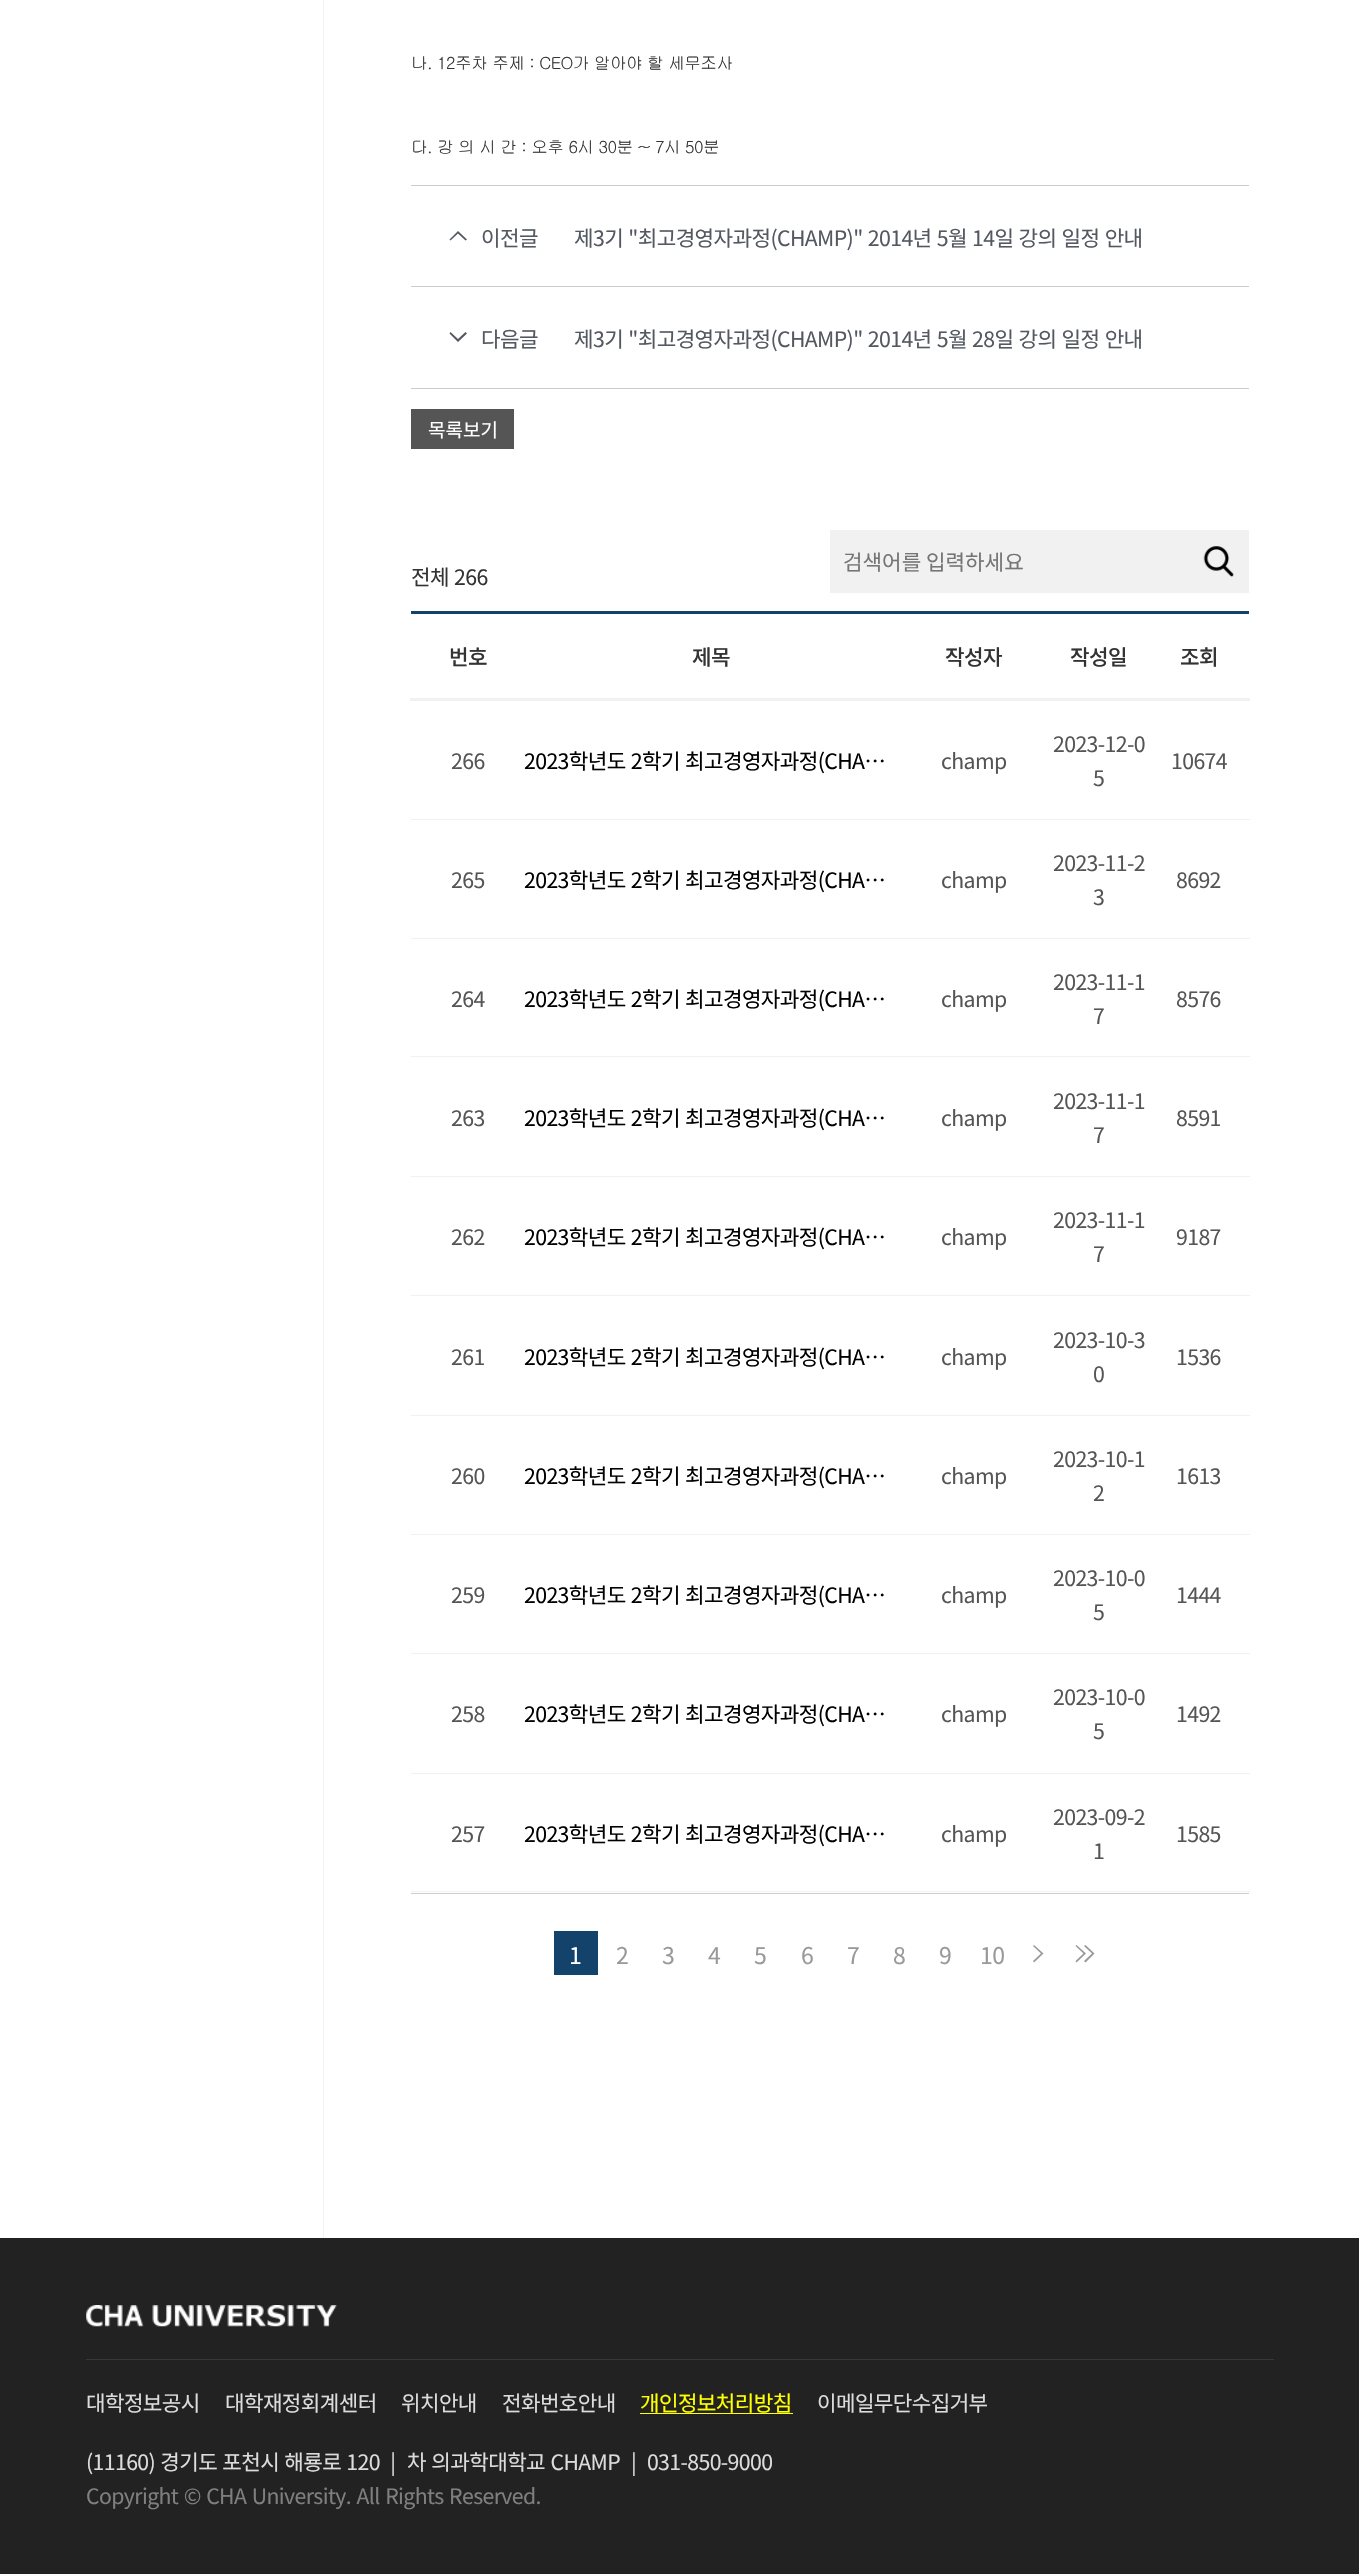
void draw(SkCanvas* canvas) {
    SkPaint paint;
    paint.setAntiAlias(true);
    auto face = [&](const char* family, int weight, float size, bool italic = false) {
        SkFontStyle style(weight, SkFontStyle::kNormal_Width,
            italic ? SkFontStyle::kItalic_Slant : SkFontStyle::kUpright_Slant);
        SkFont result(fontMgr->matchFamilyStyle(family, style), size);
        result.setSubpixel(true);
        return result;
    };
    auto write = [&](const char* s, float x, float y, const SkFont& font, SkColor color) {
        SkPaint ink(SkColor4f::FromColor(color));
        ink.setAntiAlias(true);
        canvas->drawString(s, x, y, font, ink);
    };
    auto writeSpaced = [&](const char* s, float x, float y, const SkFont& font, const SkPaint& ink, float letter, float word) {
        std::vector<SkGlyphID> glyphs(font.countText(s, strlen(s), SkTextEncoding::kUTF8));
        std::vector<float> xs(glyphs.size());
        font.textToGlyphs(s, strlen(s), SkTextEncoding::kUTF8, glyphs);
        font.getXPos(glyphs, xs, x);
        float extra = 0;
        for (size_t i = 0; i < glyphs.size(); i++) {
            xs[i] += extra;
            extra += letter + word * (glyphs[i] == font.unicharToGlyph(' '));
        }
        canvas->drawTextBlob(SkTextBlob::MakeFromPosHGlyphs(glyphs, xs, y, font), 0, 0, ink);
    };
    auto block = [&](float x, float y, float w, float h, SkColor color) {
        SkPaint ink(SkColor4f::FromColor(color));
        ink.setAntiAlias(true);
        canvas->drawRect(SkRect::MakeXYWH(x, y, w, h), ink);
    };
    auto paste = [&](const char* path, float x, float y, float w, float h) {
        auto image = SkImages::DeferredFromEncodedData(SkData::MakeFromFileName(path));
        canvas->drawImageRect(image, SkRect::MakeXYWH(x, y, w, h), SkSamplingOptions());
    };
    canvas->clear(SkColorSetRGB(34, 34, 34));
    block(0, 0, 1359, 2238, SK_ColorWHITE);
    block(323, 0, 1, 2238, SkColorSetRGB(242, 242, 242));
    auto kFont1 = face("Gulim", 400, 16.7f);
    paint.setColor(SkColorSetRGB(51, 51, 51));
    writeSpaced("나. 12주차 주제 : CEO가 알아야 할 세무조사", 411, 69, kFont1, paint, -0.6f, 0);
    writeSpaced("다. 강 의 시 간 : 오후 6시 30분 ~ 7시 50분", 411, 153, kFont1, paint, -0.6f, 0);
    block(411, 185, 838, 1, SkColorSetRGB(204, 204, 204));
    block(411, 388, 838, 1, SkColorSetRGB(204, 204, 204));
    paint.setColor(SkColorSetRGB(84, 88, 97));
    canvas->drawPath(SkPathBuilder().moveTo(465.5f, 240.5f).lineTo(458, 233.5f).lineTo(450.5f, 240.5f).lineTo(449.5f, 239.5f).lineTo(458, 231).lineTo(467, 239.5f).close().detach(), paint);
    auto kFont2 = face("Noto Sans KR", 400, 21.25f);
    writeSpaced("이전글", 481, 246, kFont2, paint, -0.6f, 0);
    writeSpaced("제3기 \"최고경영자과정(CHAMP)\" 2014년 5월 14일 강의 일정 안내", 574, 246, kFont2, paint, -0.6f, 1);
    block(411, 286, 838, 1, SkColorSetRGB(204, 204, 204));
    canvas->drawPath(SkPathBuilder().moveTo(450.5f, 332).lineTo(458, 339).lineTo(465.5f, 332).lineTo(467, 333.5f).lineTo(458, 342).lineTo(449.5f, 333.5f).close().detach(), paint);
    writeSpaced("다음글", 481, 347, kFont2, paint, -0.6f, 0);
    writeSpaced("제3기 \"최고경영자과정(CHAMP)\" 2014년 5월 28일 강의 일정 안내", 574, 347, kFont2, paint, -0.6f, 1);
    block(411, 409, 103, 40, SkColorSetRGB(85, 85, 85));
    auto kFont3 = face("Noto Sans KR", 400, 19);
    write("목록보기", 428, 437, kFont3, SK_ColorWHITE);
    block(830, 530, 419, 63, SkColorSetRGB(241, 241, 241));
    write("검색어를 입력하세요", 843, 570, kFont2, SkColorSetRGB(117, 117, 117));
    paste("pic1.png", 1203, 546, 31, 31);
    paint.setColor(SkColorSetRGB(51, 51, 51));
    writeSpaced("전체 266", 411, 585, kFont2, paint, -0.6f, 1);
    block(411, 1893, 838, 1, SkColorSetRGB(204, 204, 204));
    block(411, 611, 838, 3, SkColorSetRGB(19, 67, 107));
    auto kFont4 = face("Noto Sans KR", 500, 21.25f);
    writeSpaced("번호", 449, 665, kFont4, paint, -0.6f, 0);
    writeSpaced("제목", 692, 665, kFont4, paint, -0.6f, 0);
    writeSpaced("작성자", 945, 665, kFont4, paint, -0.6f, 0);
    writeSpaced("작성일", 1070, 665, kFont4, paint, -0.6f, 0);
    block(410, 698, 840, 3, SkColorSetRGB(241, 241, 241));
    writeSpaced("조회", 1180, 665, kFont4, paint, -0.6f, 0);
    paint.setColor(SkColorSetRGB(85, 85, 85));
    writeSpaced("266", 451, 769, kFont2, paint, -0.6f, 0);
    paint.setColor(SK_ColorBLACK);
    writeSpaced("2023학년도 2학기 최고경영자과정(CHA…", 524, 769, kFont2, paint, -0.6f, 1);
    paint.setColor(SkColorSetRGB(85, 85, 85));
    writeSpaced("champ", 941, 769, kFont2, paint, -0.6f, 0);
    writeSpaced("2023-12-0", 1053, 752, kFont2, paint, -0.6f, 0);
    writeSpaced("5", 1093, 786, kFont2, paint, -0.6f, 0);
    block(411, 819, 839, 1, SkColorSetRGB(241, 241, 241));
    writeSpaced("10674", 1171, 769, kFont2, paint, -0.6f, 0);
    writeSpaced("265", 451, 888, kFont2, paint, -0.6f, 0);
    paint.setColor(SK_ColorBLACK);
    writeSpaced("2023학년도 2학기 최고경영자과정(CHA…", 524, 888, kFont2, paint, -0.6f, 1);
    paint.setColor(SkColorSetRGB(85, 85, 85));
    writeSpaced("champ", 941, 888, kFont2, paint, -0.6f, 0);
    writeSpaced("2023-11-2", 1053, 871, kFont2, paint, -0.6f, 0);
    writeSpaced("3", 1093, 905, kFont2, paint, -0.6f, 0);
    block(411, 938, 839, 1, SkColorSetRGB(241, 241, 241));
    writeSpaced("8692", 1176, 888, kFont2, paint, -0.6f, 0);
    writeSpaced("264", 451, 1007, kFont2, paint, -0.6f, 0);
    paint.setColor(SK_ColorBLACK);
    writeSpaced("2023학년도 2학기 최고경영자과정(CHA…", 524, 1007, kFont2, paint, -0.6f, 1);
    paint.setColor(SkColorSetRGB(85, 85, 85));
    writeSpaced("champ", 941, 1007, kFont2, paint, -0.6f, 0);
    writeSpaced("2023-11-1", 1053, 990, kFont2, paint, -0.6f, 0);
    writeSpaced("7", 1093, 1024, kFont2, paint, -0.6f, 0);
    block(411, 1056, 839, 1, SkColorSetRGB(241, 241, 241));
    writeSpaced("8576", 1176, 1007, kFont2, paint, -0.6f, 0);
    writeSpaced("263", 451, 1126, kFont2, paint, -0.6f, 0);
    paint.setColor(SK_ColorBLACK);
    writeSpaced("2023학년도 2학기 최고경영자과정(CHA…", 524, 1126, kFont2, paint, -0.6f, 1);
    paint.setColor(SkColorSetRGB(85, 85, 85));
    writeSpaced("champ", 941, 1126, kFont2, paint, -0.6f, 0);
    writeSpaced("2023-11-1", 1053, 1109, kFont2, paint, -0.6f, 0);
    writeSpaced("7", 1093, 1143, kFont2, paint, -0.6f, 0);
    block(411, 1176, 839, 1, SkColorSetRGB(241, 241, 241));
    writeSpaced("8591", 1176, 1126, kFont2, paint, -0.6f, 0);
    writeSpaced("262", 451, 1245, kFont2, paint, -0.6f, 0);
    paint.setColor(SK_ColorBLACK);
    writeSpaced("2023학년도 2학기 최고경영자과정(CHA…", 524, 1245, kFont2, paint, -0.6f, 1);
    paint.setColor(SkColorSetRGB(85, 85, 85));
    writeSpaced("champ", 941, 1245, kFont2, paint, -0.6f, 0);
    writeSpaced("2023-11-1", 1053, 1228, kFont2, paint, -0.6f, 0);
    writeSpaced("7", 1093, 1262, kFont2, paint, -0.6f, 0);
    block(411, 1295, 839, 1, SkColorSetRGB(241, 241, 241));
    writeSpaced("9187", 1176, 1245, kFont2, paint, -0.6f, 0);
    writeSpaced("261", 451, 1365, kFont2, paint, -0.6f, 0);
    paint.setColor(SK_ColorBLACK);
    writeSpaced("2023학년도 2학기 최고경영자과정(CHA…", 524, 1365, kFont2, paint, -0.6f, 1);
    paint.setColor(SkColorSetRGB(85, 85, 85));
    writeSpaced("champ", 941, 1365, kFont2, paint, -0.6f, 0);
    writeSpaced("2023-10-3", 1053, 1348, kFont2, paint, -0.6f, 0);
    writeSpaced("0", 1093, 1382, kFont2, paint, -0.6f, 0);
    block(411, 1415, 839, 1, SkColorSetRGB(241, 241, 241));
    writeSpaced("1536", 1176, 1365, kFont2, paint, -0.6f, 0);
    writeSpaced("260", 451, 1484, kFont2, paint, -0.6f, 0);
    paint.setColor(SK_ColorBLACK);
    writeSpaced("2023학년도 2학기 최고경영자과정(CHA…", 524, 1484, kFont2, paint, -0.6f, 1);
    paint.setColor(SkColorSetRGB(85, 85, 85));
    writeSpaced("champ", 941, 1484, kFont2, paint, -0.6f, 0);
    writeSpaced("2023-10-1", 1053, 1467, kFont2, paint, -0.6f, 0);
    writeSpaced("2", 1093, 1501, kFont2, paint, -0.6f, 0);
    block(411, 1534, 839, 1, SkColorSetRGB(241, 241, 241));
    writeSpaced("1613", 1176, 1484, kFont2, paint, -0.6f, 0);
    writeSpaced("259", 451, 1603, kFont2, paint, -0.6f, 0);
    paint.setColor(SK_ColorBLACK);
    writeSpaced("2023학년도 2학기 최고경영자과정(CHA…", 524, 1603, kFont2, paint, -0.6f, 1);
    paint.setColor(SkColorSetRGB(85, 85, 85));
    writeSpaced("champ", 941, 1603, kFont2, paint, -0.6f, 0);
    writeSpaced("2023-10-0", 1053, 1586, kFont2, paint, -0.6f, 0);
    writeSpaced("5", 1093, 1620, kFont2, paint, -0.6f, 0);
    block(411, 1653, 839, 1, SkColorSetRGB(241, 241, 241));
    writeSpaced("1444", 1176, 1603, kFont2, paint, -0.6f, 0);
    writeSpaced("258", 451, 1722, kFont2, paint, -0.6f, 0);
    paint.setColor(SK_ColorBLACK);
    writeSpaced("2023학년도 2학기 최고경영자과정(CHA…", 524, 1722, kFont2, paint, -0.6f, 1);
    paint.setColor(SkColorSetRGB(85, 85, 85));
    writeSpaced("champ", 941, 1722, kFont2, paint, -0.6f, 0);
    writeSpaced("2023-10-0", 1053, 1705, kFont2, paint, -0.6f, 0);
    writeSpaced("5", 1093, 1739, kFont2, paint, -0.6f, 0);
    block(411, 1773, 839, 1, SkColorSetRGB(241, 241, 241));
    writeSpaced("1492", 1176, 1722, kFont2, paint, -0.6f, 0);
    writeSpaced("257", 451, 1842, kFont2, paint, -0.6f, 0);
    paint.setColor(SK_ColorBLACK);
    writeSpaced("2023학년도 2학기 최고경영자과정(CHA…", 524, 1842, kFont2, paint, -0.6f, 1);
    paint.setColor(SkColorSetRGB(85, 85, 85));
    writeSpaced("champ", 941, 1842, kFont2, paint, -0.6f, 0);
    writeSpaced("2023-09-2", 1053, 1825, kFont2, paint, -0.6f, 0);
    writeSpaced("1", 1093, 1859, kFont2, paint, -0.6f, 0);
    block(411, 1891, 839, 1, SkColorSetRGB(241, 241, 241));
    writeSpaced("1585", 1176, 1842, kFont2, paint, -0.6f, 0);
    block(554, 1931, 44, 44, SkColorSetRGB(19, 67, 107));
    auto kFont5 = face("Noto Sans KR", 400, 23);
    paint.setColor(SK_ColorWHITE);
    writeSpaced("1", 569, 1964, kFont5, paint, -0.6f, 0);
    paint.setColor(SkColorSetRGB(153, 153, 153));
    writeSpaced("2", 616, 1964, kFont5, paint, -0.6f, 0);
    writeSpaced("3", 662, 1964, kFont5, paint, -0.6f, 0);
    writeSpaced("4", 708, 1964, kFont5, paint, -0.6f, 0);
    writeSpaced("5", 754, 1964, kFont5, paint, -0.6f, 0);
    writeSpaced("6", 801, 1964, kFont5, paint, -0.6f, 0);
    writeSpaced("7", 847, 1964, kFont5, paint, -0.6f, 0);
    writeSpaced("8", 893, 1964, kFont5, paint, -0.6f, 0);
    writeSpaced("9", 939, 1964, kFont5, paint, -0.6f, 0);
    writeSpaced("10", 980, 1964, kFont5, paint, -0.6f, 0);
    canvas->drawPath(SkPathBuilder().moveTo(1033, 1961).lineTo(1041, 1953.5f).lineTo(1033, 1946).lineTo(1034, 1945).lineTo(1043.5f, 1953.5f).lineTo(1034, 1962.5f).close().moveTo(1075.5f, 1961).lineTo(1083.5f, 1953.5f).lineTo(1075.5f, 1946).lineTo(1076.5f, 1945).lineTo(1086, 1953.5f).lineTo(1076.5f, 1962.5f).close().detach(), paint);
    canvas->drawPath(SkPathBuilder().moveTo(1084, 1961).lineTo(1092, 1953.5f).lineTo(1084, 1946).lineTo(1085.5f, 1945).lineTo(1094.5f, 1953.5f).lineTo(1085.5f, 1962.5f).close().detach(), paint);
    block(86, 2359, 1188, 1, SkColorSetRGB(56, 56, 56));
    paste("pic2.png", 86, 2305, 251, 22);
    paint.setColor(SkColorSetRGB(220, 220, 220));
    writeSpaced("대학정보공시", 86, 2411, kFont2, paint, -0.6f, 0);
    writeSpaced("대학재정회계센터", 225, 2411, kFont2, paint, -0.6f, 0);
    writeSpaced("위치안내", 401, 2411, kFont2, paint, -0.6f, 0);
    writeSpaced("전화번호안내", 502, 2411, kFont2, paint, -0.6f, 0);
    paint.setColor(SkColorSetRGB(255, 255, 0));
    writeSpaced("개인정보처리방침", 640, 2411, kFont2, paint, -0.6f, 0);
    block(640, 2413, 153, 1, SkColorSetRGB(255, 255, 0));
    paint.setColor(SkColorSetRGB(220, 220, 220));
    writeSpaced("이메일무단수집거부", 817, 2411, kFont2, paint, -0.6f, 0);
    writeSpaced("(11160) 경기도 포천시 해룡로 120  |", 86, 2470, kFont2, paint, -0.6f, 1);
    writeSpaced("차 의과학대학교 CHAMP  |  031-850-9000", 407, 2470, kFont2, paint, -0.6f, 1.25f);
    paint.setColor(SkColorSetRGB(127, 127, 127));
    writeSpaced("Copyright © CHA University. All Rights Reserved.", 86, 2504, kFont2, paint, -0.6f, 1.25f);
}
